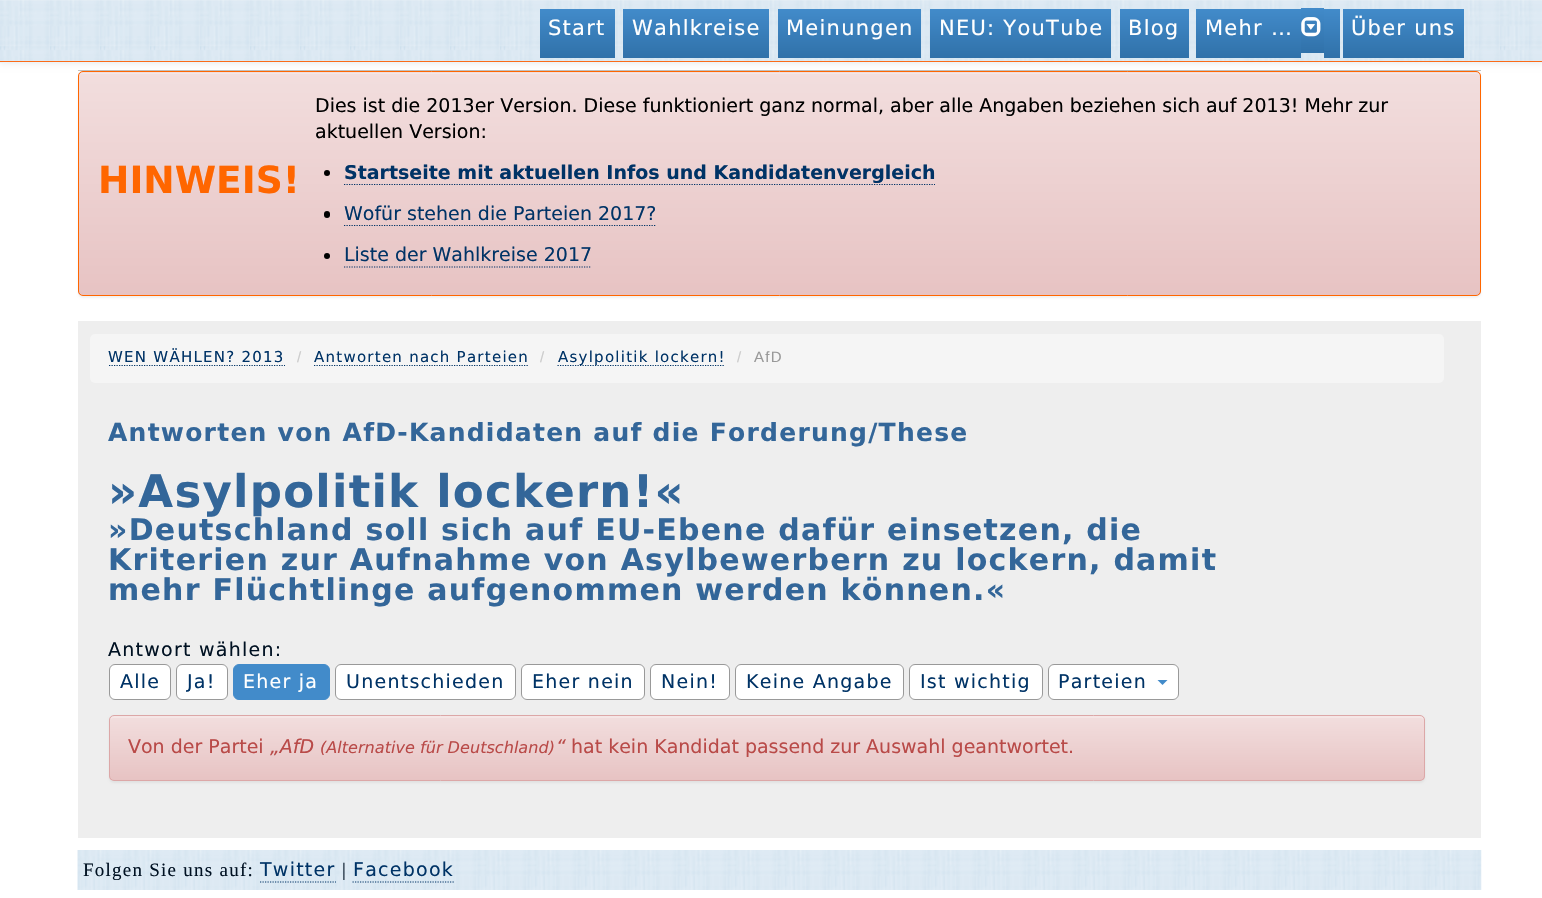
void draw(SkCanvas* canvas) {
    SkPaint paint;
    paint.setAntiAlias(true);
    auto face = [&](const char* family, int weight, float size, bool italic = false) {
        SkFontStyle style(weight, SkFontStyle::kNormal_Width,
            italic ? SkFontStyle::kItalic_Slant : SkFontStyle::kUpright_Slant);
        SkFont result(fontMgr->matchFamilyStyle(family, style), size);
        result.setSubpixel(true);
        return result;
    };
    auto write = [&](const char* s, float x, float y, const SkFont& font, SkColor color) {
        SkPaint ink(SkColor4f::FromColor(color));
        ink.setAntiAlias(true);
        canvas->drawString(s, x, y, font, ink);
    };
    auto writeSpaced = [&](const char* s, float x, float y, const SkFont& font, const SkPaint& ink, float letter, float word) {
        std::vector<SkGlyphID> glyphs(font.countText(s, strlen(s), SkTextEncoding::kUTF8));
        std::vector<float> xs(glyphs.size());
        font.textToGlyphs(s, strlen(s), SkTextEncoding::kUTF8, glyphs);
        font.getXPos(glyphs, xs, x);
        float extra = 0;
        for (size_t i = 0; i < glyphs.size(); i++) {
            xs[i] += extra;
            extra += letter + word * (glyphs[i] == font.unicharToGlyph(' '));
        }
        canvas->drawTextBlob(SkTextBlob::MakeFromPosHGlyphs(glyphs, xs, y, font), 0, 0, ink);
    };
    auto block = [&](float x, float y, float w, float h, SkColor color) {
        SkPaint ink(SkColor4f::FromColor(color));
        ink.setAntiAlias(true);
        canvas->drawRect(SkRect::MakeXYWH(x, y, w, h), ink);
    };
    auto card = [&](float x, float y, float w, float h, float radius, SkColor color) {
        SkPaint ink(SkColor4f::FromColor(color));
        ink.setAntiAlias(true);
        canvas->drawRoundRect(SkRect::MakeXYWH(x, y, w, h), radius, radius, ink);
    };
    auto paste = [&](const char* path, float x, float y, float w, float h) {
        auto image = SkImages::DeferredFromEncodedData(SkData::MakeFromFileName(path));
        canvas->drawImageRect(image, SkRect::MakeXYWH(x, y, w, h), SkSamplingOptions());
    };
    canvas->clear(SK_ColorWHITE);
    block(78, 70, 1403, 1, SkColorSetRGB(192, 192, 192));
    paint.setColor(SkColorSetARGB(13, 0, 0, 0));
    paint.setMaskFilter(SkMaskFilter::MakeBlur(kNormal_SkBlurStyle, 1));
    canvas->drawRoundRect(SkRect::MakeXYWH(78, 73, 1403, 225), 5, 5, paint);
    paint.setMaskFilter(nullptr);
    card(78, 71, 1403, 225, 5, SkColorSetRGB(242, 222, 222));
    canvas->save();
    canvas->clipPath(SkPathBuilder().moveTo(83, 71).lineTo(1476, 71).cubicTo(1479, 71, 1481, 73, 1481, 76).lineTo(1481, 291).cubicTo(1481, 294, 1479, 296, 1476, 296).lineTo(83, 296).cubicTo(80, 296, 78, 294, 78, 291).lineTo(78, 76).cubicTo(78, 73, 80, 71, 83, 71).close().detach(), true);
    {
        const SkColor colors[] = {SkColorSetRGB(242, 222, 222), SkColorSetRGB(231, 195, 195)};
        const float stops[] = {0, 1};
        const SkPoint ends[] = {{779, 72}, {779, 295}};
        paint.setShader(SkGradientShader::MakeLinear(ends, colors, stops, 2, SkTileMode::kClamp));
        paint.setAlpha(255);
    }
    canvas->drawRect(SkRect::MakeXYWH(78, 73, 1403, 222), paint);
    canvas->restore();
    paint.setShader(nullptr);
    paint.setColor(SkColorSetRGB(245, 230, 230));
    canvas->drawPath(SkPathBuilder().moveTo(82, 74).lineTo(1476, 74).cubicTo(1478, 74, 1480, 75, 1480, 78).lineTo(1480, 77).cubicTo(1480, 75, 1478, 73, 1476, 73).lineTo(83, 73).cubicTo(81, 73, 79, 75, 79, 77).lineTo(79, 78).cubicTo(79, 75, 80, 74, 82, 74).close().detach(), paint);
    paint.setStyle(SkPaint::kStroke_Style);
    paint.setStrokeWidth(1);
    paint.setColor(SkColorSetRGB(255, 102, 0));
    canvas->drawRoundRect(SkRect::MakeXYWH(78.5f, 71.5f, 1402, 224), 4.5f, 4.5f, paint);
    paint.setStyle(SkPaint::kFill_Style);
    paint.setColor(SkColorSetARGB(18, 0, 0, 0));
    paint.setMaskFilter(SkMaskFilter::MakeBlur(kNormal_SkBlurStyle, 3));
    canvas->drawRect(SkRect::MakeXYWH(0, 1, 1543, 63), paint);
    paint.setMaskFilter(nullptr);
    block(0, 62, 1542, 1, SK_ColorWHITE);
    paste("pic1.png", 0, 0, 1542, 63);
    block(0, 0, 1542, 1, SkColorSetARGB(38, 255, 255, 255));
    block(0, 61, 1542, 1, SkColorSetRGB(251, 107, 23));
    {
        const SkColor colors[] = {SkColorSetRGB(66, 139, 202), SkColorSetRGB(48, 113, 169)};
        const float stops[] = {0, 1};
        const SkPoint ends[] = {{578, 9}, {578, 58}};
        paint.setShader(SkGradientShader::MakeLinear(ends, colors, stops, 2, SkTileMode::kClamp));
        paint.setAlpha(255);
    }
    canvas->drawRect(SkRect::MakeXYWH(540, 9, 75, 49), paint);
    auto kFont1 = face("DejaVu Sans", 400, 21);
    paint.setShader(nullptr);
    paint.setColor(SK_ColorWHITE);
    writeSpaced("Start", 548, 35, kFont1, paint, 1.25f, 0);
    {
        const SkColor colors[] = {SkColorSetRGB(66, 139, 202), SkColorSetRGB(48, 113, 169)};
        const float stops[] = {0, 1};
        const SkPoint ends[] = {{696, 9}, {696, 58}};
        paint.setShader(SkGradientShader::MakeLinear(ends, colors, stops, 2, SkTileMode::kClamp));
        paint.setAlpha(255);
    }
    canvas->drawRect(SkRect::MakeXYWH(623, 9, 146, 49), paint);
    paint.setShader(nullptr);
    paint.setColor(SK_ColorWHITE);
    writeSpaced("Wahlkreise", 632, 35, kFont1, paint, 1.25f, 0);
    {
        const SkColor colors[] = {SkColorSetRGB(66, 139, 202), SkColorSetRGB(48, 113, 169)};
        const float stops[] = {0, 1};
        const SkPoint ends[] = {{849, 9}, {849, 58}};
        paint.setShader(SkGradientShader::MakeLinear(ends, colors, stops, 2, SkTileMode::kClamp));
        paint.setAlpha(255);
    }
    canvas->drawRect(SkRect::MakeXYWH(778, 9, 143, 49), paint);
    paint.setShader(nullptr);
    paint.setColor(SK_ColorWHITE);
    writeSpaced("Meinungen", 786, 35, kFont1, paint, 1.25f, 0);
    {
        const SkColor colors[] = {SkColorSetRGB(66, 139, 202), SkColorSetRGB(48, 113, 169)};
        const float stops[] = {0, 1};
        const SkPoint ends[] = {{1021, 9}, {1021, 58}};
        paint.setShader(SkGradientShader::MakeLinear(ends, colors, stops, 2, SkTileMode::kClamp));
        paint.setAlpha(255);
    }
    canvas->drawRect(SkRect::MakeXYWH(930, 9, 181, 49), paint);
    paint.setShader(nullptr);
    paint.setColor(SK_ColorWHITE);
    writeSpaced("NEU: YouTube", 939, 35, kFont1, paint, 1.25f, 0);
    {
        const SkColor colors[] = {SkColorSetRGB(66, 139, 202), SkColorSetRGB(48, 113, 169)};
        const float stops[] = {0, 1};
        const SkPoint ends[] = {{1154, 9}, {1154, 58}};
        paint.setShader(SkGradientShader::MakeLinear(ends, colors, stops, 2, SkTileMode::kClamp));
        paint.setAlpha(255);
    }
    canvas->drawRect(SkRect::MakeXYWH(1120, 9, 69, 49), paint);
    paint.setShader(nullptr);
    paint.setColor(SK_ColorWHITE);
    writeSpaced("Blog", 1128, 35, kFont1, paint, 1.25f, 0);
    {
        const SkColor colors[] = {SkColorSetRGB(66, 139, 202), SkColorSetRGB(48, 113, 169)};
        const float stops[] = {0, 1};
        const SkPoint ends[] = {{1249, 9}, {1249, 58}};
        paint.setShader(SkGradientShader::MakeLinear(ends, colors, stops, 2, SkTileMode::kClamp));
        paint.setAlpha(255);
    }
    canvas->drawRect(SkRect::MakeXYWH(1196, 9, 105, 49), paint);
    {
        const SkColor colors[] = {SkColorSetRGB(66, 139, 202), SkColorSetRGB(48, 113, 169)};
        const float stops[] = {0, 1};
        const SkPoint ends[] = {{1313, 7.5f}, {1313, 53}};
        paint.setShader(SkGradientShader::MakeLinear(ends, colors, stops, 2, SkTileMode::kClamp));
        paint.setAlpha(255);
    }
    canvas->drawRect(SkRect::MakeXYWH(1301, 8, 23, 45), paint);
    {
        const SkColor colors[] = {SkColorSetRGB(66, 139, 202), SkColorSetRGB(48, 113, 169)};
        const float stops[] = {0, 1};
        const SkPoint ends[] = {{1332, 9}, {1332, 58}};
        paint.setShader(SkGradientShader::MakeLinear(ends, colors, stops, 2, SkTileMode::kClamp));
        paint.setAlpha(255);
    }
    canvas->drawRect(SkRect::MakeXYWH(1324, 9, 16, 49), paint);
    paint.setShader(nullptr);
    paint.setColor(SK_ColorWHITE);
    writeSpaced("Mehr …", 1205, 35, kFont1, paint, 1.25f, 0);
    paste("pic2.png", 1301, 17, 20, 20);
    {
        const SkColor colors[] = {SkColorSetRGB(66, 139, 202), SkColorSetRGB(48, 113, 169)};
        const float stops[] = {0, 1};
        const SkPoint ends[] = {{1403, 9}, {1403, 58}};
        paint.setShader(SkGradientShader::MakeLinear(ends, colors, stops, 2, SkTileMode::kClamp));
        paint.setAlpha(255);
    }
    canvas->drawRect(SkRect::MakeXYWH(1343, 9, 121, 49), paint);
    paint.setShader(nullptr);
    paint.setColor(SK_ColorWHITE);
    writeSpaced("Über uns", 1351, 35, kFont1, paint, 1.25f, 0);
    auto kFont2 = face("DejaVu Sans", 700, 37.5f);
    write("HINWEIS!", 98, 193, kFont2, SkColorSetRGB(255, 102, 0));
    auto kFont3 = face("DejaVu Sans", 400, 19);
    write("Dies ist die 2013er Version. Diese funktioniert ganz normal, aber alle Angaben beziehen sich auf 2013! Mehr zur", 315, 112, kFont3, SK_ColorBLACK);
    write("aktuellen Version:", 315, 138, kFont3, SK_ColorBLACK);
    paint.setColor(SK_ColorBLACK);
    canvas->drawCircle(327, 173, 3, paint);
    paint.setStyle(SkPaint::kStroke_Style);
    paint.setStrokeWidth(1.2f);
    paint.setColor(SkColorSetRGB(0, 51, 102));
    paint.setPathEffect(SkDashPathEffect::Make({{1.25f, 1.25f}}, 0));
    canvas->drawPath(SkPathBuilder().moveTo(344, 184.5f).lineTo(935, 184.5f).detach(), paint);
    paint.setPathEffect(nullptr);
    auto kFont4 = face("DejaVu Sans", 700, 19);
    write("Startseite mit aktuellen Infos und Kandidatenvergleich", 344, 179, kFont4, SkColorSetRGB(0, 51, 102));
    card(324, 211, 6, 7, 3, SK_ColorBLACK);
    write("Wofür stehen die Parteien 2017?", 344, 220, kFont3, SkColorSetRGB(0, 51, 102));
    paint.setPathEffect(SkDashPathEffect::Make({{1.25f, 1.25f}}, 0));
    canvas->drawPath(SkPathBuilder().moveTo(344, 225.5f).lineTo(656, 225.5f).detach(), paint);
    paint.setPathEffect(nullptr);
    paint.setStyle(SkPaint::kFill_Style);
    paint.setColor(SK_ColorBLACK);
    canvas->drawCircle(327, 256, 3, paint);
    write("Liste der Wahlkreise 2017", 344, 261, kFont3, SkColorSetRGB(0, 51, 102));
    paint.setStyle(SkPaint::kStroke_Style);
    paint.setColor(SkColorSetRGB(0, 51, 102));
    paint.setPathEffect(SkDashPathEffect::Make({{1.25f, 1.25f}}, 0));
    canvas->drawPath(SkPathBuilder().moveTo(344, 267).lineTo(591, 267).detach(), paint);
    paint.setPathEffect(nullptr);
    block(78, 321, 1403, 517, SkColorSetRGB(238, 238, 238));
    card(90, 334, 1354, 49, 5, SkColorSetRGB(245, 245, 245));
    auto kFont5 = face("DejaVu Sans", 400, 15);
    paint.setStyle(SkPaint::kFill_Style);
    writeSpaced("WEN WÄHLEN? 2013", 108, 362, kFont5, paint, 1.25f, 0);
    paint.setStyle(SkPaint::kStroke_Style);
    paint.setPathEffect(SkDashPathEffect::Make({{1.25f, 1.25f}}, 0));
    canvas->drawPath(SkPathBuilder().moveTo(109, 365.5f).lineTo(285, 365.5f).detach(), paint);
    paint.setPathEffect(nullptr);
    auto kFont6 = face("Liberation Sans", 400, 15);
    paint.setStyle(SkPaint::kFill_Style);
    paint.setColor(SkColorSetRGB(204, 204, 204));
    writeSpaced("/", 297, 362, kFont6, paint, 1.25f, 0);
    paint.setColor(SkColorSetRGB(0, 51, 102));
    writeSpaced("Antworten nach Parteien", 314, 362, kFont5, paint, 1.25f, 0);
    paint.setStyle(SkPaint::kStroke_Style);
    paint.setPathEffect(SkDashPathEffect::Make({{1.25f, 1.25f}}, 0));
    canvas->drawPath(SkPathBuilder().moveTo(314, 365.5f).lineTo(529, 365.5f).detach(), paint);
    paint.setPathEffect(nullptr);
    paint.setStyle(SkPaint::kFill_Style);
    paint.setColor(SkColorSetRGB(204, 204, 204));
    writeSpaced("/", 540, 362, kFont6, paint, 1.25f, 0);
    paint.setStyle(SkPaint::kStroke_Style);
    paint.setColor(SkColorSetRGB(0, 51, 102));
    paint.setPathEffect(SkDashPathEffect::Make({{1.25f, 1.25f}}, 0));
    canvas->drawPath(SkPathBuilder().moveTo(557.5f, 365.5f).lineTo(725, 365.5f).detach(), paint);
    paint.setPathEffect(nullptr);
    paint.setStyle(SkPaint::kFill_Style);
    writeSpaced("Asylpolitik lockern!", 558, 362, kFont5, paint, 1.25f, 0);
    paint.setColor(SkColorSetRGB(204, 204, 204));
    writeSpaced("/", 737, 362, kFont6, paint, 1.25f, 0);
    paint.setColor(SkColorSetRGB(153, 153, 153));
    writeSpaced("AfD", 754, 362, kFont6, paint, 1.25f, 0);
    auto kFont7 = face("DejaVu Sans", 700, 25);
    paint.setColor(SkColorSetRGB(51, 102, 153));
    writeSpaced("Antworten von AfD-Kandidaten auf die Forderung/These", 108, 441, kFont7, paint, 1.25f, 0);
    auto kFont8 = face("DejaVu Sans", 700, 45);
    writeSpaced("»Asylpolitik lockern!«", 108, 507, kFont8, paint, 1.25f, 0);
    auto kFont9 = face("DejaVu Sans", 700, 30);
    writeSpaced("»Deutschland soll sich auf EU-Ebene dafür einsetzen, die", 108, 540, kFont9, paint, 1.25f, 0);
    writeSpaced("Kriterien zur Aufnahme von Asylbewerbern zu lockern, damit", 108, 570, kFont9, paint, 1.25f, 0);
    writeSpaced("mehr Flüchtlinge aufgenommen werden können.«", 108, 600, kFont9, paint, 1.25f, 0);
    paint.setColor(SkColorSetRGB(0, 17, 34));
    writeSpaced("Antwort wählen:", 108, 656, kFont3, paint, 1.25f, 0);
    paint.setColor(SK_ColorWHITE);
    canvas->drawRoundRect(SkRect::MakeXYWH(109.5f, 664.5f, 61, 35), 5.5f, 5.5f, paint);
    paint.setStyle(SkPaint::kStroke_Style);
    paint.setStrokeWidth(1);
    paint.setColor(SkColorSetRGB(153, 153, 153));
    canvas->drawRoundRect(SkRect::MakeXYWH(109.5f, 664.5f, 61, 35), 5.5f, 5.5f, paint);
    paint.setStyle(SkPaint::kFill_Style);
    paint.setColor(SkColorSetRGB(0, 51, 102));
    writeSpaced("Alle", 120, 688, kFont3, paint, 1.25f, 0);
    paint.setColor(SK_ColorWHITE);
    canvas->drawRoundRect(SkRect::MakeXYWH(176.5f, 664.5f, 51, 35), 5.5f, 5.5f, paint);
    paint.setStyle(SkPaint::kStroke_Style);
    paint.setColor(SkColorSetRGB(153, 153, 153));
    canvas->drawRoundRect(SkRect::MakeXYWH(176.5f, 664.5f, 51, 35), 5.5f, 5.5f, paint);
    paint.setStyle(SkPaint::kFill_Style);
    paint.setColor(SkColorSetRGB(0, 51, 102));
    writeSpaced("Ja!", 187, 688, kFont3, paint, 1.25f, 0);
    paint.setColor(SkColorSetRGB(66, 139, 202));
    canvas->drawRoundRect(SkRect::MakeXYWH(233.5f, 664.5f, 96, 35), 5.5f, 5.5f, paint);
    paint.setStyle(SkPaint::kStroke_Style);
    canvas->drawRoundRect(SkRect::MakeXYWH(233.5f, 664.5f, 96, 35), 5.5f, 5.5f, paint);
    paint.setStyle(SkPaint::kFill_Style);
    paint.setColor(SK_ColorWHITE);
    writeSpaced("Eher ja", 243, 688, kFont3, paint, 1.25f, 0);
    canvas->drawRoundRect(SkRect::MakeXYWH(335.5f, 664.5f, 180, 35), 5.5f, 5.5f, paint);
    paint.setStyle(SkPaint::kStroke_Style);
    paint.setColor(SkColorSetRGB(153, 153, 153));
    canvas->drawRoundRect(SkRect::MakeXYWH(335.5f, 664.5f, 180, 35), 5.5f, 5.5f, paint);
    paint.setStyle(SkPaint::kFill_Style);
    paint.setColor(SkColorSetRGB(0, 51, 102));
    writeSpaced("Unentschieden", 346, 688, kFont3, paint, 1.25f, 0);
    paint.setColor(SK_ColorWHITE);
    canvas->drawRoundRect(SkRect::MakeXYWH(521.5f, 664.5f, 123, 35), 5.5f, 5.5f, paint);
    paint.setStyle(SkPaint::kStroke_Style);
    paint.setColor(SkColorSetRGB(153, 153, 153));
    canvas->drawRoundRect(SkRect::MakeXYWH(521.5f, 664.5f, 123, 35), 5.5f, 5.5f, paint);
    paint.setStyle(SkPaint::kFill_Style);
    paint.setColor(SkColorSetRGB(0, 51, 102));
    writeSpaced("Eher nein", 532, 688, kFont3, paint, 1.25f, 0);
    paint.setColor(SK_ColorWHITE);
    canvas->drawRoundRect(SkRect::MakeXYWH(650.5f, 664.5f, 79, 35), 5.5f, 5.5f, paint);
    paint.setStyle(SkPaint::kStroke_Style);
    paint.setColor(SkColorSetRGB(153, 153, 153));
    canvas->drawRoundRect(SkRect::MakeXYWH(650.5f, 664.5f, 79, 35), 5.5f, 5.5f, paint);
    paint.setStyle(SkPaint::kFill_Style);
    paint.setColor(SkColorSetRGB(0, 51, 102));
    writeSpaced("Nein!", 661, 688, kFont3, paint, 1.25f, 0);
    paint.setColor(SK_ColorWHITE);
    canvas->drawRoundRect(SkRect::MakeXYWH(735.5f, 664.5f, 168, 35), 5.5f, 5.5f, paint);
    paint.setStyle(SkPaint::kStroke_Style);
    paint.setColor(SkColorSetRGB(153, 153, 153));
    canvas->drawRoundRect(SkRect::MakeXYWH(735.5f, 664.5f, 168, 35), 5.5f, 5.5f, paint);
    paint.setStyle(SkPaint::kFill_Style);
    paint.setColor(SkColorSetRGB(0, 51, 102));
    writeSpaced("Keine Angabe", 746, 688, kFont3, paint, 1.25f, 0);
    paint.setColor(SK_ColorWHITE);
    canvas->drawRoundRect(SkRect::MakeXYWH(909.5f, 664.5f, 133, 35), 5.5f, 5.5f, paint);
    paint.setStyle(SkPaint::kStroke_Style);
    paint.setColor(SkColorSetRGB(153, 153, 153));
    canvas->drawRoundRect(SkRect::MakeXYWH(909.5f, 664.5f, 133, 35), 5.5f, 5.5f, paint);
    paint.setStyle(SkPaint::kFill_Style);
    paint.setColor(SkColorSetRGB(0, 51, 102));
    writeSpaced("Ist wichtig", 920, 688, kFont3, paint, 1.25f, 0);
    paint.setColor(SK_ColorWHITE);
    canvas->drawRoundRect(SkRect::MakeXYWH(1048.5f, 664.5f, 130, 35), 5.5f, 5.5f, paint);
    paint.setStyle(SkPaint::kStroke_Style);
    paint.setColor(SkColorSetRGB(153, 153, 153));
    canvas->drawRoundRect(SkRect::MakeXYWH(1048.5f, 664.5f, 130, 35), 5.5f, 5.5f, paint);
    paint.setStyle(SkPaint::kFill_Style);
    paint.setColor(SkColorSetRGB(0, 51, 102));
    writeSpaced("Parteien", 1058, 688, kFont3, paint, 1.25f, 0);
    paint.setColor(SkColorSetRGB(66, 139, 202));
    canvas->drawPath(SkPathBuilder().moveTo(1157.5f, 680).lineTo(1167.5f, 680).lineTo(1162.5f, 685).close().detach(), paint);
    paint.setColor(SkColorSetARGB(13, 0, 0, 0));
    paint.setMaskFilter(SkMaskFilter::MakeBlur(kNormal_SkBlurStyle, 1));
    canvas->drawRoundRect(SkRect::MakeXYWH(109, 716, 1316, 67), 5, 5, paint);
    paint.setMaskFilter(nullptr);
    canvas->save();
    canvas->clipPath(SkPathBuilder().moveTo(114, 715).lineTo(1420, 715).cubicTo(1423, 715, 1425, 717, 1425, 720).lineTo(1425, 776).cubicTo(1425, 779, 1423, 781, 1420, 781).lineTo(114, 781).cubicTo(111, 781, 109, 779, 109, 776).lineTo(109, 720).cubicTo(109, 717, 111, 715, 114, 715).close().detach(), true);
    {
        const SkColor colors[] = {SkColorSetRGB(242, 222, 222), SkColorSetRGB(231, 195, 195)};
        const float stops[] = {0, 1};
        const SkPoint ends[] = {{767, 716}, {767, 780}};
        paint.setShader(SkGradientShader::MakeLinear(ends, colors, stops, 2, SkTileMode::kClamp));
        paint.setAlpha(255);
    }
    canvas->drawRect(SkRect::MakeXYWH(109, 716, 1316, 64), paint);
    canvas->restore();
    paint.setShader(nullptr);
    paint.setColor(SkColorSetRGB(245, 230, 230));
    canvas->drawPath(SkPathBuilder().moveTo(114, 718).lineTo(1420, 718).cubicTo(1422, 718, 1424, 719, 1424, 721).lineTo(1424, 720).cubicTo(1424, 718, 1422, 716, 1420, 716).lineTo(114, 716).cubicTo(112, 716, 110, 718, 110, 720).lineTo(110, 721).cubicTo(110, 719, 112, 718, 114, 718).close().detach(), paint);
    paint.setStyle(SkPaint::kStroke_Style);
    paint.setColor(SkColorSetRGB(220, 167, 167));
    canvas->drawRoundRect(SkRect::MakeXYWH(109.5f, 715.5f, 1315, 65), 4.5f, 4.5f, paint);
    write("Von der Partei", 128, 753, kFont3, SkColorSetRGB(185, 74, 72));
    auto kFont10 = face("DejaVu Sans", 400, 19, true);
    write("„AfD", 270, 753, kFont10, SkColorSetRGB(185, 74, 72));
    auto kFont11 = face("DejaVu Sans", 400, 16.1f, true);
    write("(Alternative für Deutschland)", 320, 753, kFont11, SkColorSetRGB(185, 74, 72));
    write("“", 556, 753, kFont10, SkColorSetRGB(185, 74, 72));
    write("hat kein Kandidat passend zur Auswahl geantwortet.", 571, 753, kFont3, SkColorSetRGB(185, 74, 72));
    paste("pic3.png", 77, 850, 1405, 40);
    auto kFont12 = face("Liberation Serif", 400, 19);
    paint.setStyle(SkPaint::kFill_Style);
    paint.setColor(SkColorSetRGB(0, 17, 34));
    writeSpaced("Folgen Sie uns auf:", 83, 876, kFont12, paint, 1.25f, 0);
    paint.setColor(SkColorSetRGB(0, 51, 102));
    writeSpaced("Twitter", 260, 876, kFont3, paint, 1.25f, 0);
    paint.setStyle(SkPaint::kStroke_Style);
    paint.setStrokeWidth(1.2f);
    paint.setPathEffect(SkDashPathEffect::Make({{1.25f, 1.25f}}, 0));
    canvas->drawPath(SkPathBuilder().moveTo(260, 882).lineTo(336, 882).detach(), paint);
    paint.setPathEffect(nullptr);
    paint.setStyle(SkPaint::kFill_Style);
    paint.setColor(SkColorSetRGB(0, 17, 34));
    writeSpaced("|", 342, 876, kFont12, paint, 1.25f, 0);
    paint.setColor(SkColorSetRGB(0, 51, 102));
    writeSpaced("Facebook", 353, 876, kFont3, paint, 1.25f, 0);
    paint.setStyle(SkPaint::kStroke_Style);
    paint.setPathEffect(SkDashPathEffect::Make({{1.25f, 1.25f}}, 0));
    canvas->drawPath(SkPathBuilder().moveTo(352.5f, 882).lineTo(454, 882).detach(), paint);
    paint.setPathEffect(nullptr);
}
